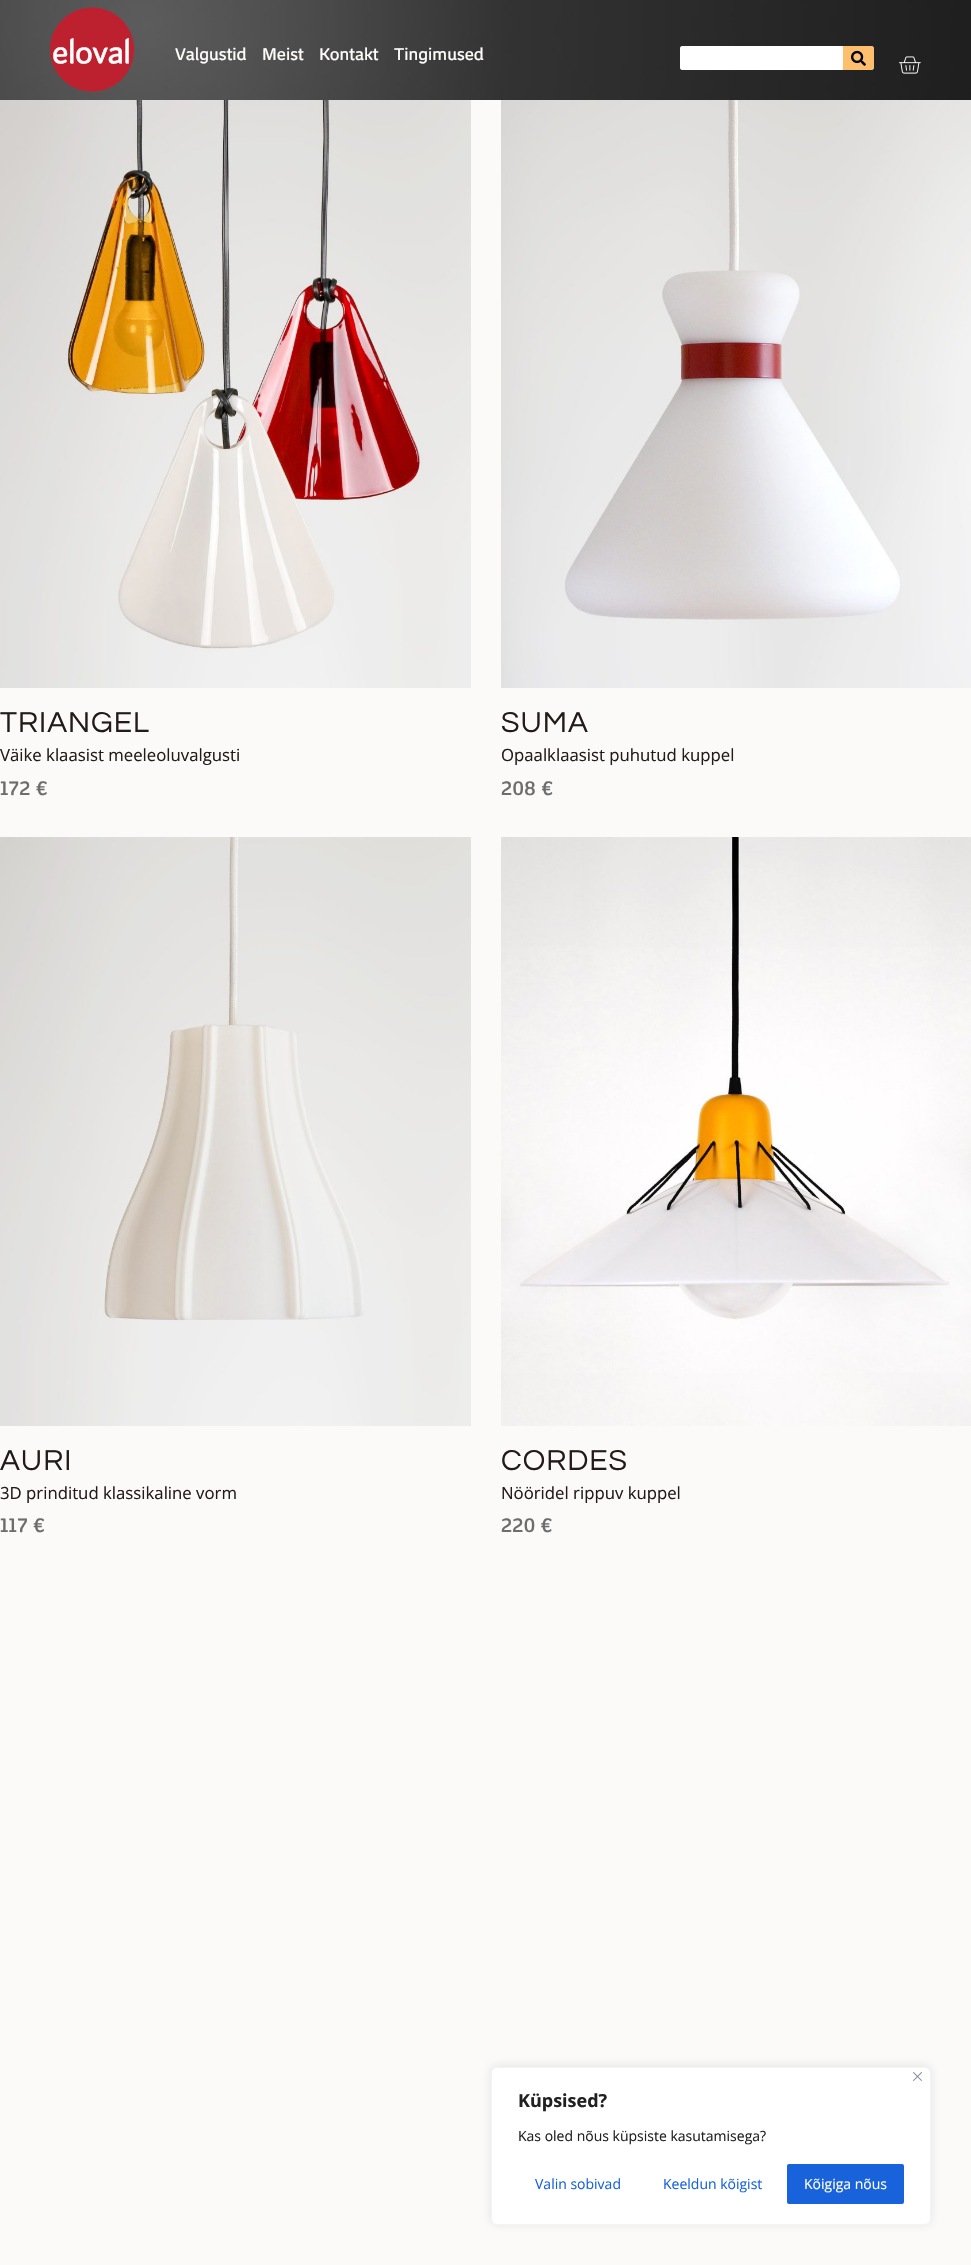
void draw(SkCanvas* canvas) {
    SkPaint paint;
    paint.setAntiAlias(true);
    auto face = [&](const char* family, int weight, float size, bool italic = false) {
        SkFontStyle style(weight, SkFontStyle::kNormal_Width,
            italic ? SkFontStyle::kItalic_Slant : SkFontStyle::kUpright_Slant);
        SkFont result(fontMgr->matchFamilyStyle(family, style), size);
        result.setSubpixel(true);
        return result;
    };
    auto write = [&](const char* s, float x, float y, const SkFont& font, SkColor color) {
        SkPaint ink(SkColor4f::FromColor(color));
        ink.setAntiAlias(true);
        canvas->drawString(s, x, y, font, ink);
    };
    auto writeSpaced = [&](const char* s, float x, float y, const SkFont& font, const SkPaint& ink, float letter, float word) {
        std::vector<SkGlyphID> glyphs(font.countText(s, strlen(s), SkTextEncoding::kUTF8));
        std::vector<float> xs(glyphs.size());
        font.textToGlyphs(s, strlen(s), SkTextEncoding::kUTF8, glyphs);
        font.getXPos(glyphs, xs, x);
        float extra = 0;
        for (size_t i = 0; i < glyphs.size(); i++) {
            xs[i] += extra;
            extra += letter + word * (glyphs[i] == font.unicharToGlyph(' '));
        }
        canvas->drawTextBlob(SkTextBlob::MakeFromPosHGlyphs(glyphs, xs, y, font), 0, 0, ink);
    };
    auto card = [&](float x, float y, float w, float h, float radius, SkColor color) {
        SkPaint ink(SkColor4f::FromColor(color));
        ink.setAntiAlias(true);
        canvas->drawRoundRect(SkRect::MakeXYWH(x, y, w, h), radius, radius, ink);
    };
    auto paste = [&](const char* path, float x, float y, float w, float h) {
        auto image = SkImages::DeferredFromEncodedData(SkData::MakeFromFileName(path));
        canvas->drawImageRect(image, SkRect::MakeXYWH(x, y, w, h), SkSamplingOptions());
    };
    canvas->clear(SkColorSetRGB(251, 250, 248));
    paste("pic1.png", 0, 0, 971, 100);
    paste("pic2.png", 49, 7, 85, 85);
    auto kFont1 = face("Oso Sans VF", 400, 17.5f);
    write("Valgustid", 175, 60, kFont1, SkColorSetRGB(255, 253, 251));
    write("Meist", 262, 60, kFont1, SkColorSetRGB(255, 253, 251));
    write("Kontakt", 319, 60, kFont1, SkColorSetRGB(255, 253, 251));
    write("Tingimused", 394, 60, kFont1, SkColorSetRGB(255, 253, 251));
    card(680, 46, 194, 24, 3, SkColorSetRGB(241, 242, 243));
    card(680, 46, 163, 24, 3, SK_ColorWHITE);
    paint.setColor(SkColorSetRGB(253, 191, 110));
    canvas->drawPath(SkPathBuilder().moveTo(843, 46).lineTo(871, 46).cubicTo(872.5f, 46, 874, 47.5f, 874, 49).lineTo(874, 67).cubicTo(874, 68.5f, 872.5f, 70, 871, 70).lineTo(843, 70).close().detach(), paint);
    paste("pic3.png", 851, 50, 15, 16);
    paste("pic4.png", 899, 56, 22, 18);
    paste("pic5.png", 0, 100, 471, 588);
    auto kFont2 = face("Questrial", 400, 30);
    paint.setColor(SkColorSetRGB(34, 27, 25));
    writeSpaced("TRIANGEL", 0, 732, kFont2, paint, 1, 0);
    auto kFont3 = face("Open Sans", 400, 16.75f);
    write("Väike klaasist meeleoluvalgusti", 0, 761, kFont3, SkColorSetRGB(34, 27, 25));
    auto kFont4 = face("Oso Sans VF", 400, 22);
    write("172 €", 0, 795, kFont4, SkColorSetRGB(109, 109, 109));
    paste("pic6.png", 501, 100, 470, 588);
    writeSpaced("SUMA", 501, 732, kFont2, paint, 1, 0);
    write("Opaalklaasist puhutud kuppel", 501, 761, kFont3, SkColorSetRGB(34, 27, 25));
    write("208 €", 501, 795, kFont4, SkColorSetRGB(109, 109, 109));
    paste("pic7.png", 0, 837, 471, 589);
    writeSpaced("AURI", 0, 1470, kFont2, paint, 1, 0);
    write("3D prinditud klassikaline vorm", 0, 1499, kFont3, SkColorSetRGB(34, 27, 25));
    write("117 €", 0, 1532, kFont4, SkColorSetRGB(109, 109, 109));
    paste("pic8.png", 501, 837, 470, 589);
    writeSpaced("CORDES", 501, 1470, kFont2, paint, 1, 0);
    write("Nööridel rippuv kuppel", 501, 1499, kFont3, SkColorSetRGB(34, 27, 25));
    write("220 €", 501, 1532, kFont4, SkColorSetRGB(109, 109, 109));
    paint.setColor(SkColorSetARGB(77, 172, 171, 171));
    paint.setMaskFilter(SkMaskFilter::MakeBlur(kNormal_SkBlurStyle, 5));
    canvas->drawRoundRect(SkRect::MakeXYWH(491, 2066, 440, 158), 6, 6, paint);
    paint.setMaskFilter(nullptr);
    paint.setColor(SK_ColorWHITE);
    canvas->drawRoundRect(SkRect::MakeXYWH(491.5f, 2067.5f, 439, 157), 5.5f, 5.5f, paint);
    paint.setStyle(SkPaint::kStroke_Style);
    paint.setStrokeWidth(1);
    paint.setColor(SkColorSetRGB(244, 244, 244));
    canvas->drawRoundRect(SkRect::MakeXYWH(491.5f, 2067.5f, 439, 157), 5.5f, 5.5f, paint);
    paste("pic9.png", 913, 2072, 9, 9);
    auto kFont5 = face("Open Sans", 700, 18);
    write("Küpsised?", 518, 2107, kFont5, SkColorSetRGB(33, 33, 33));
    auto kFont6 = face("Open Sans", 400, 14);
    write("Kas oled nõus küpsiste kasutamisega?", 518, 2141, kFont6, SkColorSetRGB(33, 33, 33));
    write("Valin sobivad", 535, 2189, kFont6, SkColorSetRGB(24, 99, 220));
    write("Keeldun kõigist", 663, 2189, kFont6, SkColorSetRGB(24, 99, 220));
    card(787, 2164, 117, 40, 2, SkColorSetRGB(24, 99, 220));
    write("Kõigiga nõus", 804, 2189, kFont6, SkColorSetRGB(255, 253, 251));
}
